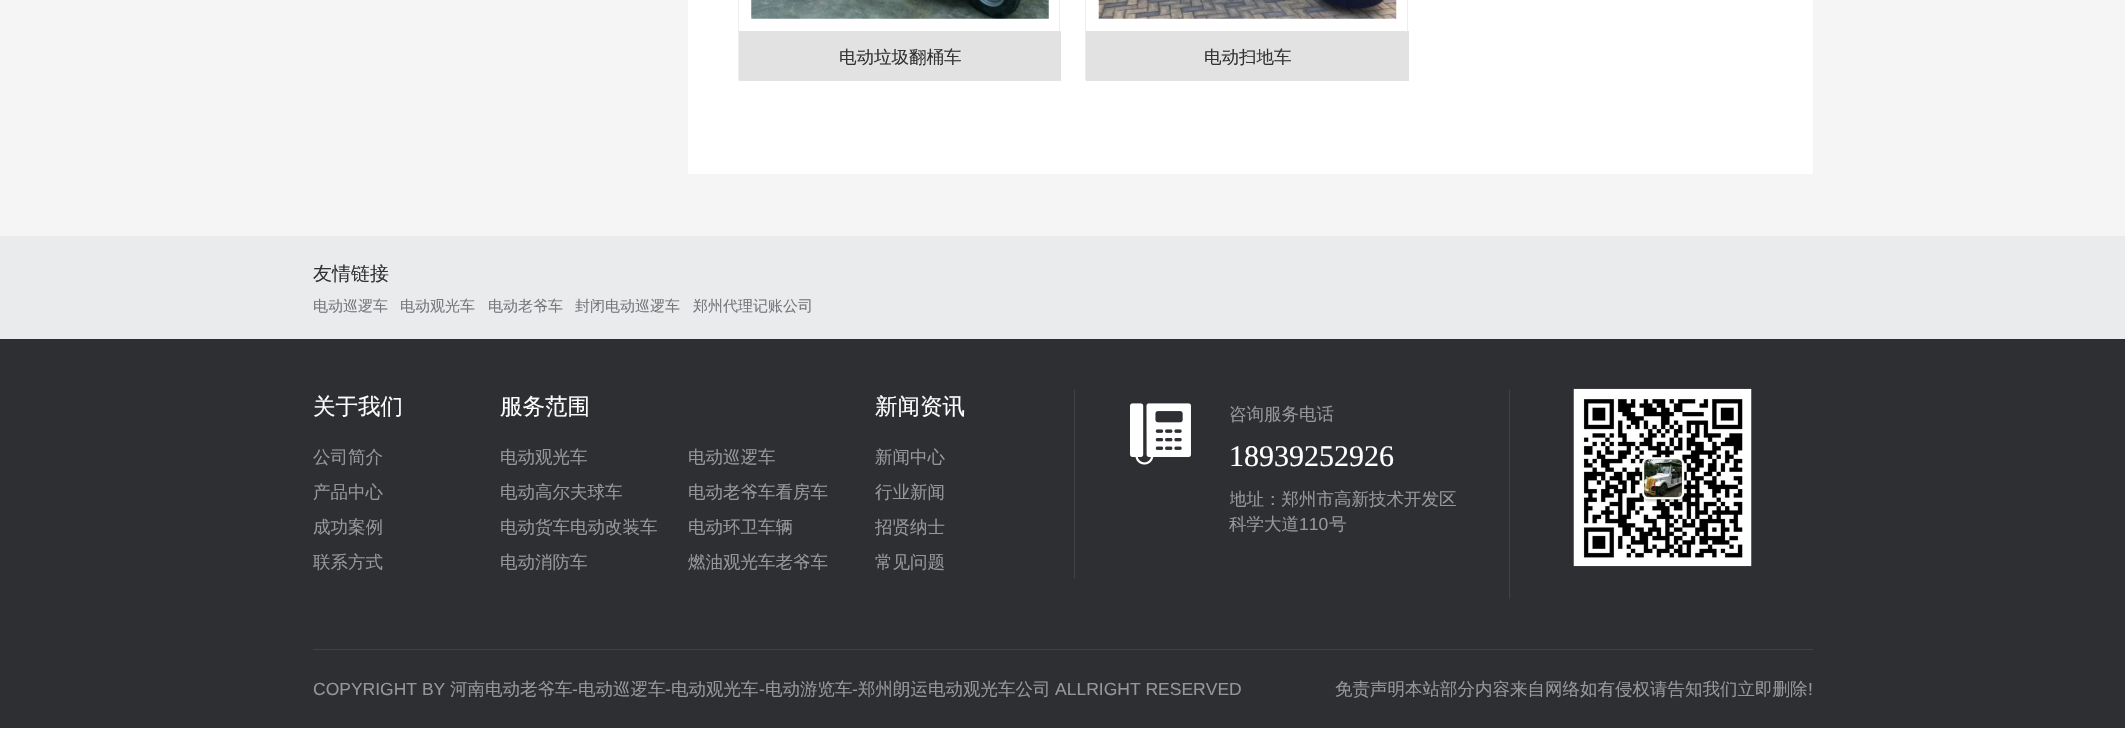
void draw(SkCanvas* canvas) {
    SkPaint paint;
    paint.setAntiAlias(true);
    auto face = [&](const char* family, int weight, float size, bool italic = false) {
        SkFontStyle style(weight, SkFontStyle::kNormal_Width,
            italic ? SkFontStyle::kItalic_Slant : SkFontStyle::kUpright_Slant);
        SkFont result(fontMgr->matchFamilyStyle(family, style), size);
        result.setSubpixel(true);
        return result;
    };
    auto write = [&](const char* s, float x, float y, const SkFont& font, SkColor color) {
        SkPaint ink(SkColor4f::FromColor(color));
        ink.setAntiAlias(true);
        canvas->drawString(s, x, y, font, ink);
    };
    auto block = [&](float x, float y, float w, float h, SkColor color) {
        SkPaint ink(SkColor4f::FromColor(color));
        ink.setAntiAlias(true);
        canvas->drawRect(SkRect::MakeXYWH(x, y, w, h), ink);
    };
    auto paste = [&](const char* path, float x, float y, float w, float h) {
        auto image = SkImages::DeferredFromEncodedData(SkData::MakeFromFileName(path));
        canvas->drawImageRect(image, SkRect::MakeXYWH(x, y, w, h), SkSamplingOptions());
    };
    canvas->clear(SK_ColorWHITE);
    block(0, 0, 2125, 236, SkColorSetRGB(245, 245, 245));
    block(688, 0, 1125, 174, SK_ColorWHITE);
    paint.setStyle(SkPaint::kStroke_Style);
    paint.setStrokeWidth(1);
    paint.setColor(SkColorSetRGB(238, 238, 238));
    canvas->drawRect(SkRect::MakeXYWH(738.5f, -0.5f, 321, 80), paint);
    paste("pic1.png", 751, 0, 298, 19);
    block(739, 31, 322, 50, SkColorSetRGB(226, 226, 226));
    auto kFont1 = face("WenQuanYi Zen Hei", 500, 17.5f);
    write("电动垃圾翻桶车", 839, 63, kFont1, SkColorSetRGB(51, 51, 51));
    canvas->drawRect(SkRect::MakeXYWH(1085.5f, -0.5f, 322, 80), paint);
    paste("pic2.png", 1098, 0, 299, 19);
    block(1086, 31, 323, 50, SkColorSetRGB(226, 226, 226));
    write("电动扫地车", 1204, 63, kFont1, SkColorSetRGB(51, 51, 51));
    block(0, 236, 2125, 103, SkColorSetRGB(234, 235, 237));
    auto kFont2 = face("WenQuanYi Zen Hei", 500, 19);
    write("友情链接", 313, 280, kFont2, SkColorSetRGB(51, 51, 51));
    auto kFont3 = face("WenQuanYi Zen Hei", 500, 15);
    write("电动巡逻车", 313, 311, kFont3, SkColorSetRGB(116, 119, 124));
    write("电动观光车", 400, 311, kFont3, SkColorSetRGB(116, 119, 124));
    write("电动老爷车", 488, 311, kFont3, SkColorSetRGB(116, 119, 124));
    write("封闭电动巡逻车", 575, 311, kFont3, SkColorSetRGB(116, 119, 124));
    write("郑州代理记账公司", 693, 311, kFont3, SkColorSetRGB(116, 119, 124));
    block(0, 339, 2125, 389, SkColorSetRGB(46, 47, 51));
    block(1074, 389, 1, 190, SkColorSetRGB(65, 66, 69));
    auto kFont4 = face("WenQuanYi Zen Hei", 500, 22.5f);
    write("关于我们", 313, 414, kFont4, SK_ColorWHITE);
    write("公司简介", 313, 463, kFont1, SkColorSetRGB(151, 151, 153));
    write("产品中心", 313, 498, kFont1, SkColorSetRGB(151, 151, 153));
    write("成功案例", 313, 533, kFont1, SkColorSetRGB(151, 151, 153));
    canvas->save();
    canvas->clipRect(SkRect::MakeXYWH(313, 389, 761, 190));
    write("联系方式", 313, 568, kFont1, SkColorSetRGB(151, 151, 153));
    canvas->restore();
    write("服务范围", 500, 414, kFont4, SK_ColorWHITE);
    write("电动观光车", 500, 463, kFont1, SkColorSetRGB(151, 151, 153));
    write("电动巡逻车", 688, 463, kFont1, SkColorSetRGB(151, 151, 153));
    write("电动高尔夫球车", 500, 498, kFont1, SkColorSetRGB(151, 151, 153));
    write("电动老爷车看房车", 688, 498, kFont1, SkColorSetRGB(151, 151, 153));
    write("电动货车电动改装车", 500, 533, kFont1, SkColorSetRGB(151, 151, 153));
    write("电动环卫车辆", 688, 533, kFont1, SkColorSetRGB(151, 151, 153));
    write("电动消防车", 500, 568, kFont1, SkColorSetRGB(151, 151, 153));
    write("燃油观光车老爷车", 688, 568, kFont1, SkColorSetRGB(151, 151, 153));
    write("新闻资讯", 875, 414, kFont4, SK_ColorWHITE);
    write("新闻中心", 875, 463, kFont1, SkColorSetRGB(151, 151, 153));
    write("行业新闻", 875, 498, kFont1, SkColorSetRGB(151, 151, 153));
    write("招贤纳士", 875, 533, kFont1, SkColorSetRGB(151, 151, 153));
    write("常见问题", 875, 568, kFont1, SkColorSetRGB(151, 151, 153));
    block(1509, 389, 1, 210, SkColorSetRGB(65, 66, 69));
    paste("pic3.png", 1130, 403, 61, 62);
    write("咨询服务电话", 1229, 420, kFont1, SkColorSetRGB(151, 151, 153));
    auto kFont5 = face("Liberation Serif", 400, 30);
    write("18939252926", 1229, 466, kFont5, SK_ColorWHITE);
    canvas->save();
    canvas->clipRect(SkRect::MakeXYWH(1230, 389, 228, 160));
    write("地址：郑州市高新技术开发区", 1229, 505, kFont1, SkColorSetRGB(151, 151, 153));
    canvas->restore();
    write("科学大道", 1229, 530, kFont1, SkColorSetRGB(151, 151, 153));
    auto kFont6 = face("Liberation Sans", 400, 17.5f);
    write("110", 1299, 530, kFont6, SkColorSetRGB(151, 151, 153));
    write("号", 1329, 530, kFont1, SkColorSetRGB(151, 151, 153));
    paste("pic4.png", 1573, 388, 179, 179);
    block(313, 649, 1500, 1, SkColorSetRGB(65, 66, 69));
    write("COPYRIGHT BY", 313, 695, kFont6, SkColorSetRGB(151, 151, 153));
    write("河南电动老爷车", 450, 695, kFont1, SkColorSetRGB(151, 151, 153));
    write("-", 572, 695, kFont6, SkColorSetRGB(151, 151, 153));
    write("电动巡逻车", 578, 695, kFont1, SkColorSetRGB(151, 151, 153));
    write("-", 665, 695, kFont6, SkColorSetRGB(151, 151, 153));
    write("电动观光车", 671, 695, kFont1, SkColorSetRGB(151, 151, 153));
    write("-", 759, 695, kFont6, SkColorSetRGB(151, 151, 153));
    write("电动游览车", 765, 695, kFont1, SkColorSetRGB(151, 151, 153));
    write("-", 852, 695, kFont6, SkColorSetRGB(151, 151, 153));
    write("郑州朗运电动观光车公司", 858, 695, kFont1, SkColorSetRGB(151, 151, 153));
    write("ALLRIGHT RESERVED", 1055, 695, kFont6, SkColorSetRGB(151, 151, 153));
    write("免责声明本站部分内容来自网络如有侵权请告知我们立即删除", 1335, 695, kFont1, SkColorSetRGB(151, 151, 153));
    write("!", 1808, 695, kFont6, SkColorSetRGB(151, 151, 153));
}
